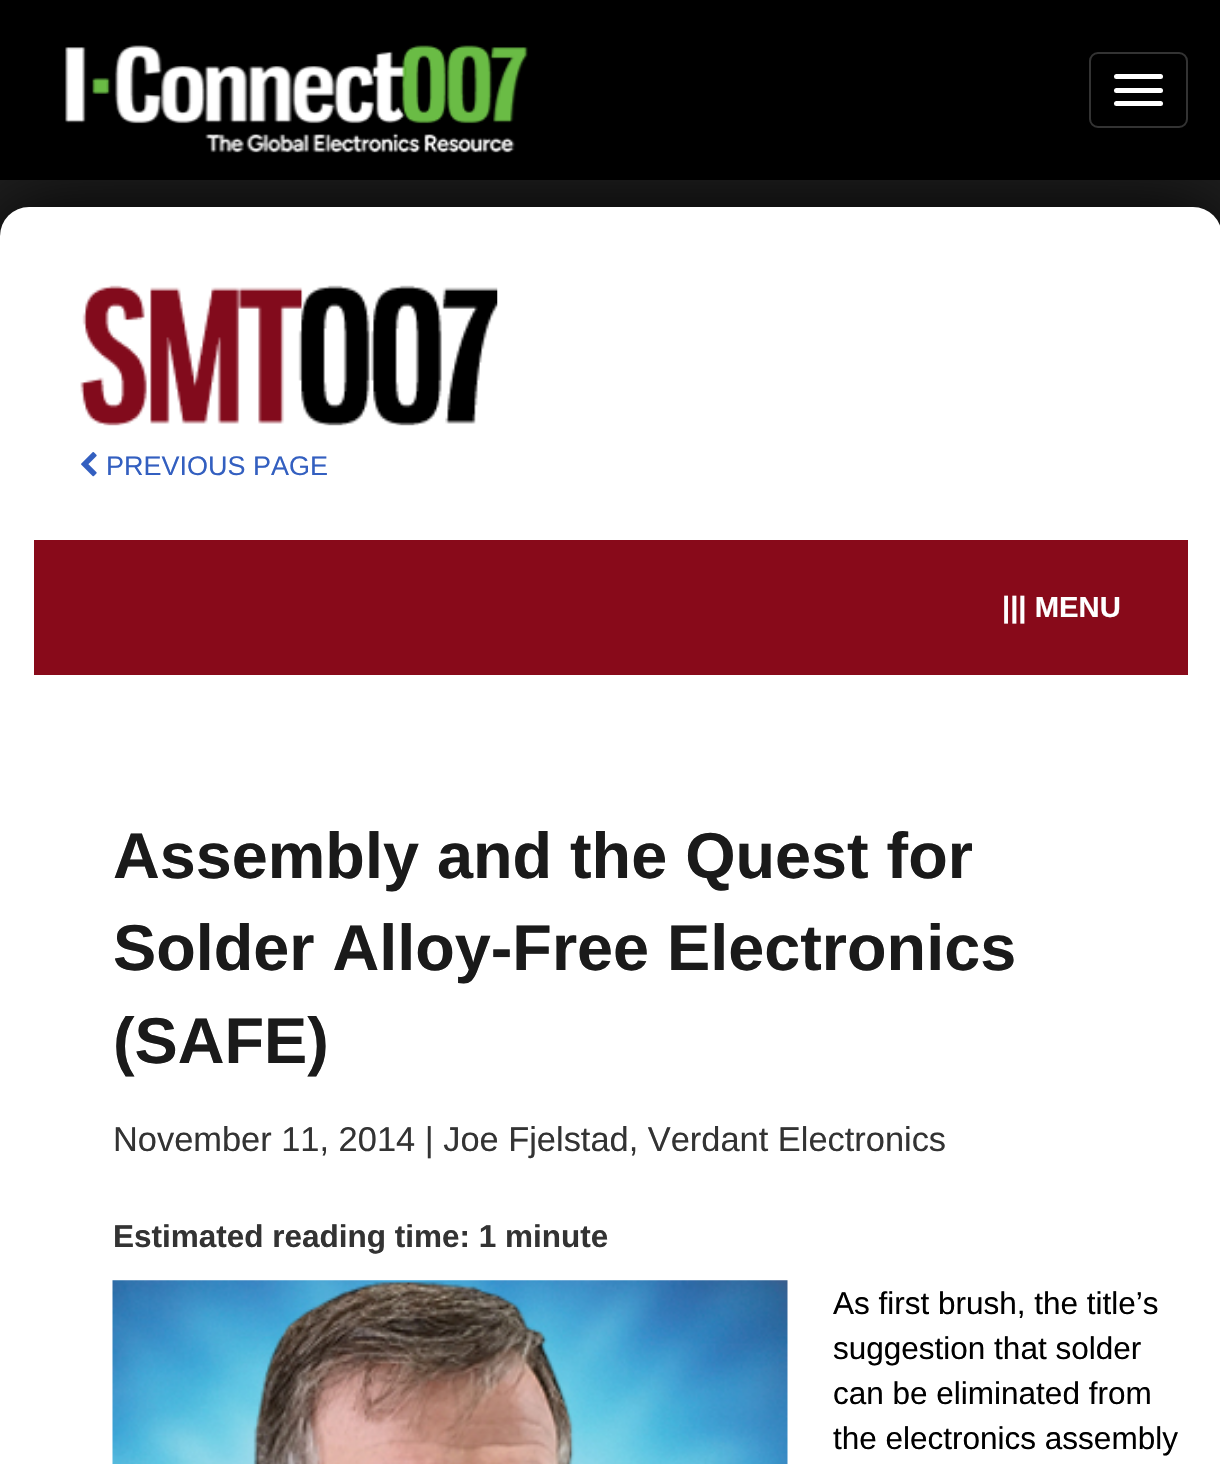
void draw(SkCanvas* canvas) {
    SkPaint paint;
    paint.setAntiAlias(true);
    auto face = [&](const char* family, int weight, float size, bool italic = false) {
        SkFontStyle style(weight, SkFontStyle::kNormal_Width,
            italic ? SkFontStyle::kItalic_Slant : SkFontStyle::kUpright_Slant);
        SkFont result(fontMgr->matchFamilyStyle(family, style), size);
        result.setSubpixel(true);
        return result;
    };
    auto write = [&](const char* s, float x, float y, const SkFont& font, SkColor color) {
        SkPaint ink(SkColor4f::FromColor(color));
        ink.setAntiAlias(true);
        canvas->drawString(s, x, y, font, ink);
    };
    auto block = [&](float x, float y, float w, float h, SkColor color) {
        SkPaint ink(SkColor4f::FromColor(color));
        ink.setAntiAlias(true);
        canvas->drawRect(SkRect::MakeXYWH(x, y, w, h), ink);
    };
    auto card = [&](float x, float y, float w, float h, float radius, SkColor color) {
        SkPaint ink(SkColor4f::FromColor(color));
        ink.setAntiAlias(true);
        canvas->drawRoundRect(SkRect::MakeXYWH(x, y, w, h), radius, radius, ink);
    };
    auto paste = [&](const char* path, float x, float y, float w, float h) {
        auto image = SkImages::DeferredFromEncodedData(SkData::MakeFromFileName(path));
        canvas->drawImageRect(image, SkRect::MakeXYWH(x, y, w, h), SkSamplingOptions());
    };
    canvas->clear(SkColorSetRGB(30, 30, 30));
    paint.setColor(SK_ColorBLACK);
    paint.setMaskFilter(SkMaskFilter::MakeBlur(kNormal_SkBlurStyle, 40.5f));
    canvas->drawRoundRect(SkRect::MakeXYWH(0, 207, 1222, 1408), 29, 29, paint);
    paint.setMaskFilter(nullptr);
    block(0, 0, 1220, 180, SK_ColorBLACK);
    paste("pic1.png", 65, 45, 463, 108);
    paint.setStyle(SkPaint::kStroke_Style);
    paint.setStrokeWidth(2);
    paint.setColor(SkColorSetRGB(51, 51, 51));
    canvas->drawRoundRect(SkRect::MakeXYWH(1090, 53, 97, 74), 8, 8, paint);
    card(1114, 74, 49, 5, 2.5f, SK_ColorWHITE);
    card(1114, 88, 49, 5, 2.5f, SK_ColorWHITE);
    card(1114, 101, 49, 5, 2.5f, SK_ColorWHITE);
    card(0, 207, 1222, 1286, 29, SK_ColorWHITE);
    paste("pic2.png", 80, 285, 418, 141);
    paste("pic3.png", 81, 452, 16, 25);
    auto kFont1 = face("Liberation Sans", 400, 27);
    write("PREVIOUS PAGE", 106, 475, kFont1, SkColorSetRGB(51, 95, 192));
    block(34, 540, 1154, 135, SkColorSetRGB(136, 10, 26));
    auto kFont2 = face("Liberation Sans", 700, 29.25f);
    write("||| MENU", 1002, 617, kFont2, SK_ColorWHITE);
    auto kFont3 = face("Liberation Sans", 700, 64.75f);
    write("Assembly and the Quest for", 113, 878, kFont3, SkColorSetRGB(26, 26, 26));
    write("Solder Alloy-Free Electronics", 113, 970, kFont3, SkColorSetRGB(26, 26, 26));
    write("(SAFE)", 113, 1063, kFont3, SkColorSetRGB(26, 26, 26));
    auto kFont4 = face("Liberation Sans", 400, 34.4f);
    write("November 11, 2014 | Joe Fjelstad, Verdant Electronics", 113, 1151, kFont4, SkColorSetRGB(51, 51, 51));
    auto kFont5 = face("Liberation Sans", 700, 31.5f);
    write("Estimated reading time: 1 minute", 113, 1247, kFont5, SkColorSetRGB(51, 51, 51));
    paste("pic4.png", 112, 1280, 676, 184);
    auto kFont6 = face("Liberation Sans", 400, 31.5f);
    write("As first brush, the title’s", 833, 1314, kFont6, SK_ColorBLACK);
    write("suggestion that solder", 833, 1359, kFont6, SK_ColorBLACK);
    write("can be eliminated from", 833, 1404, kFont6, SK_ColorBLACK);
    write("the electronics assembly", 833, 1449, kFont6, SK_ColorBLACK);
}
